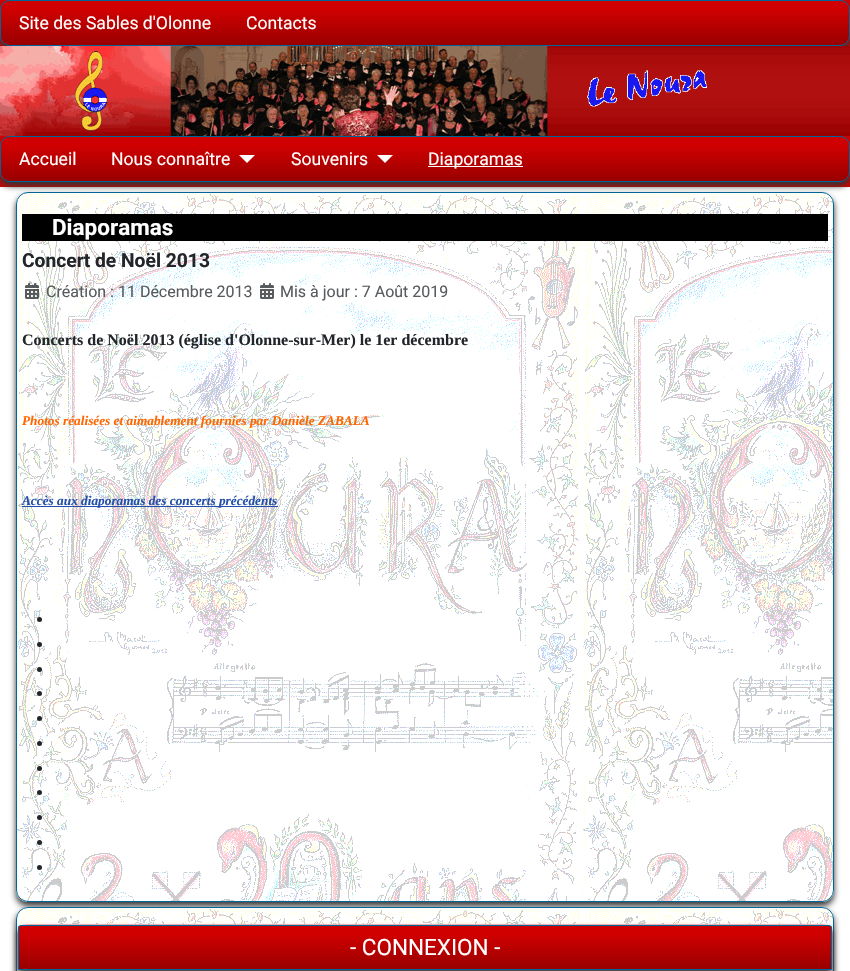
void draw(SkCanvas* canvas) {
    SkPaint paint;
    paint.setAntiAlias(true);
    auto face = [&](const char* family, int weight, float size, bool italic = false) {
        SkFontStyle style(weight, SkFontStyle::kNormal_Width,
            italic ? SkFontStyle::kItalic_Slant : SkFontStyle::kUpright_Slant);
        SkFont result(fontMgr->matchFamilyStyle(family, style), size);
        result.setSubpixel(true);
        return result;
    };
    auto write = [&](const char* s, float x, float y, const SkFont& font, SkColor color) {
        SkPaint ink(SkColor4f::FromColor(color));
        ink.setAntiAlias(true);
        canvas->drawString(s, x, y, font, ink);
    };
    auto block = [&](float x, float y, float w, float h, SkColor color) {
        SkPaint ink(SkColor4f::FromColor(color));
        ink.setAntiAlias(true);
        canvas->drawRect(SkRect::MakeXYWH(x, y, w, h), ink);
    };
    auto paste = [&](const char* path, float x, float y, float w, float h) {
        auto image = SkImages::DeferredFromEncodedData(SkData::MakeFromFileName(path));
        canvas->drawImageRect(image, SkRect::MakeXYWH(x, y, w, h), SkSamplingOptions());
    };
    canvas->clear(SK_ColorWHITE);
    paint.setColor(SkColorSetRGB(51, 51, 51));
    paint.setMaskFilter(SkMaskFilter::MakeBlur(kNormal_SkBlurStyle, 3));
    canvas->drawRoundRect(SkRect::MakeXYWH(16, 196, 818, 710), 12, 12, paint);
    paint.setMaskFilter(nullptr);
    block(0, 0, 850, 187, SkColorSetRGB(208, 0, 0));
    paint.setMaskFilter(SkMaskFilter::MakeBlur(kNormal_SkBlurStyle, 3));
    canvas->drawRoundRect(SkRect::MakeXYWH(0, 4, 850, 46), 10, 10, paint);
    paint.setMaskFilter(nullptr);
    canvas->save();
    canvas->clipPath(SkPathBuilder().moveTo(10, 0).lineTo(840, 0).cubicTo(845.5f, 0, 850, 4.5f, 850, 10).lineTo(850, 36).cubicTo(850, 41.5f, 845.5f, 46, 840, 46).lineTo(10, 46).cubicTo(4.5f, 46, 0, 41.5f, 0, 36).lineTo(0, 10).cubicTo(0, 4.5f, 4.5f, 0, 10, 0).close().detach(), true);
    {
        const SkColor colors[] = {SkColorSetRGB(208, 0, 0), SkColorSetRGB(153, 0, 0)};
        const float stops[] = {0.19f, 1};
        const SkPoint ends[] = {{425, 1}, {425, 45}};
        paint.setShader(SkGradientShader::MakeLinear(ends, colors, stops, 2, SkTileMode::kClamp));
        paint.setAlpha(255);
    }
    canvas->drawRect(SkRect::MakeXYWH(0, 1, 850, 44), paint);
    canvas->restore();
    paint.setStyle(SkPaint::kStroke_Style);
    paint.setStrokeWidth(1);
    paint.setShader(nullptr);
    paint.setColor(SkColorSetRGB(0, 102, 153));
    canvas->drawRoundRect(SkRect::MakeXYWH(0.5f, 0.5f, 849, 45), 9.5f, 9.5f, paint);
    auto kFont1 = face("Roboto", 400, 17.6f);
    write("Site des Sables d'Olonne", 19, 29, kFont1, SK_ColorWHITE);
    write("Contacts", 246, 29, kFont1, SK_ColorWHITE);
    paste("pic2.png", 16, 193, 818, 709);
    canvas->drawRoundRect(SkRect::MakeXYWH(16.5f, 192.5f, 817, 709), 11.5f, 11.5f, paint);
    paint.setStyle(SkPaint::kFill_Style);
    paint.setColor(SkColorSetRGB(51, 51, 51));
    paint.setMaskFilter(SkMaskFilter::MakeBlur(kNormal_SkBlurStyle, 3));
    canvas->drawRoundRect(SkRect::MakeXYWH(0, 140, 850, 46), 10, 10, paint);
    paint.setMaskFilter(nullptr);
    paste("pic1.png", 0, 46, 850, 90);
    canvas->save();
    canvas->clipPath(SkPathBuilder().moveTo(10, 136).lineTo(840, 136).cubicTo(845.5f, 136, 850, 140.5f, 850, 146).lineTo(850, 172).cubicTo(850, 177.5f, 845.5f, 182, 840, 182).lineTo(10, 182).cubicTo(4.5f, 182, 0, 177.5f, 0, 172).lineTo(0, 146).cubicTo(0, 140.5f, 4.5f, 136, 10, 136).close().detach(), true);
    {
        const SkColor colors[] = {SkColorSetRGB(208, 0, 0), SkColorSetRGB(153, 0, 0)};
        const float stops[] = {0.19f, 1};
        const SkPoint ends[] = {{425, 137}, {425, 181}};
        paint.setShader(SkGradientShader::MakeLinear(ends, colors, stops, 2, SkTileMode::kClamp));
        paint.setAlpha(255);
    }
    canvas->drawRect(SkRect::MakeXYWH(0, 137, 850, 44), paint);
    canvas->restore();
    paint.setStyle(SkPaint::kStroke_Style);
    paint.setShader(nullptr);
    paint.setColor(SkColorSetRGB(0, 102, 153));
    canvas->drawRoundRect(SkRect::MakeXYWH(0.5f, 136.5f, 849, 45), 9.5f, 9.5f, paint);
    write("Accueil", 19, 165, kFont1, SK_ColorWHITE);
    write("Nous connaître", 111, 165, kFont1, SK_ColorWHITE);
    paint.setStyle(SkPaint::kFill_Style);
    paint.setColor(SK_ColorWHITE);
    canvas->drawPath(SkPathBuilder().moveTo(239, 155).lineTo(255, 155).lineTo(247, 163).close().detach(), paint);
    write("Souvenirs", 291, 165, kFont1, SK_ColorWHITE);
    canvas->drawPath(SkPathBuilder().moveTo(377, 155).lineTo(393, 155).lineTo(385, 163).close().detach(), paint);
    block(428, 166, 95, 1, SK_ColorWHITE);
    write("Diaporamas", 428, 165, kFont1, SK_ColorWHITE);
    block(22, 214, 806, 27, SK_ColorBLACK);
    auto kFont2 = face("Roboto", 700, 22.5f);
    write("Diaporamas", 52, 235, kFont2, SK_ColorWHITE);
    auto kFont3 = face("Roboto", 700, 19.25f);
    write("Concert de Noël 2013", 22, 267, kFont3, SkColorSetRGB(34, 38, 42));
    paste("pic3.png", 25, 283, 14, 16);
    auto kFont4 = face("Roboto", 400, 16);
    write("Création : 11 Décembre 2013", 46, 297, kFont4, SkColorSetRGB(88, 91, 94));
    paste("pic4.png", 260, 283, 14, 16);
    write("Mis à jour : 7 Août 2019", 280, 297, kFont4, SkColorSetRGB(88, 91, 94));
    auto kFont5 = face("Liberation Serif", 700, 16);
    write("Concerts de Noël 2013 (église d'Olonne-sur-Mer) le 1er décembre", 22, 345, kFont5, SkColorSetRGB(34, 38, 42));
    auto kFont6 = face("Liberation Serif", 700, 13.3f, true);
    write("Photos réalisées et aimablement fournies par Danièle ZABALA", 22, 425, kFont6, SkColorSetRGB(255, 102, 0));
    block(22, 506, 256, 1, SkColorSetRGB(34, 79, 170));
    write("Accès aux diaporamas des concerts précédents", 22, 505, kFont6, SkColorSetRGB(34, 79, 170));
    paint.setColor(SkColorSetRGB(34, 38, 42));
    canvas->drawCircle(39.5f, 619.5f, 2.5f, paint);
    canvas->drawCircle(39.5f, 644.5f, 2.5f, paint);
    canvas->drawCircle(39.5f, 669.5f, 2.5f, paint);
    canvas->drawCircle(39.5f, 693.5f, 2.5f, paint);
    canvas->drawCircle(39.5f, 718.5f, 2.5f, paint);
    canvas->drawCircle(39.5f, 743.5f, 2.5f, paint);
    canvas->drawCircle(39.5f, 768.5f, 2.5f, paint);
    canvas->drawCircle(39.5f, 792.5f, 2.5f, paint);
    canvas->drawCircle(39.5f, 817.5f, 2.5f, paint);
    canvas->drawCircle(39.5f, 842.5f, 2.5f, paint);
    canvas->drawCircle(39.5f, 867.5f, 2.5f, paint);
    paint.setColor(SkColorSetRGB(51, 51, 51));
    paint.setMaskFilter(SkMaskFilter::MakeBlur(kNormal_SkBlurStyle, 3));
    canvas->drawRoundRect(SkRect::MakeXYWH(16, 911, 818, 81), 12, 12, paint);
    paint.setMaskFilter(nullptr);
    paste("pic5.png", 16, 907, 818, 27);
    paint.setStyle(SkPaint::kStroke_Style);
    paint.setColor(SkColorSetRGB(0, 102, 153));
    canvas->drawRoundRect(SkRect::MakeXYWH(16.5f, 907.5f, 817, 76), 11.5f, 11.5f, paint);
    canvas->save();
    canvas->clipPath(SkPathBuilder().moveTo(27, 924).lineTo(823, 924).cubicTo(828.5f, 924, 833, 928.5f, 833, 934).lineTo(833, 1280).cubicTo(833, 1285.5f, 828.5f, 1290, 823, 1290).lineTo(27, 1290).cubicTo(21.5f, 1290, 17, 1285.5f, 17, 1280).lineTo(17, 934).cubicTo(17, 928.5f, 21.5f, 924, 27, 924).close().detach(), true);
    paint.setStyle(SkPaint::kFill_Style);
    {
        const SkColor colors[] = {SK_ColorWHITE, SkColorSetRGB(248, 213, 213)};
        const float stops[] = {0.66f, 1};
        const SkPoint ends[] = {{425, 925}, {425, 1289}};
        paint.setShader(SkGradientShader::MakeLinear(ends, colors, stops, 2, SkTileMode::kClamp));
        paint.setAlpha(255);
    }
    canvas->drawRect(SkRect::MakeXYWH(17, 929, 816, 42), paint);
    canvas->restore();
    paint.setStyle(SkPaint::kStroke_Style);
    paint.setShader(nullptr);
    paint.setColor(SkColorSetRGB(251, 185, 185));
    canvas->drawRoundRect(SkRect::MakeXYWH(17.5f, 924.5f, 815, 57), 9.5f, 9.5f, paint);
    paint.setStyle(SkPaint::kFill_Style);
    paint.setColor(SkColorSetRGB(51, 51, 51));
    paint.setMaskFilter(SkMaskFilter::MakeBlur(kNormal_SkBlurStyle, 3));
    canvas->drawRoundRect(SkRect::MakeXYWH(18, 929, 814, 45), 3, 3, paint);
    paint.setMaskFilter(nullptr);
    canvas->save();
    canvas->clipPath(SkPathBuilder().moveTo(21, 925).lineTo(829, 925).cubicTo(830.5f, 925, 832, 926.5f, 832, 928).lineTo(832, 970).lineTo(18, 970).lineTo(18, 928).cubicTo(18, 926.5f, 19.5f, 925, 21, 925).close().detach(), true);
    {
        const SkColor colors[] = {SkColorSetRGB(208, 0, 0), SkColorSetRGB(153, 0, 0)};
        const float stops[] = {0.19f, 1};
        const SkPoint ends[] = {{425, 926}, {425, 969}};
        paint.setShader(SkGradientShader::MakeLinear(ends, colors, stops, 2, SkTileMode::kClamp));
        paint.setAlpha(255);
    }
    canvas->drawRect(SkRect::MakeXYWH(18, 926, 814, 43), paint);
    canvas->restore();
    paint.setStyle(SkPaint::kStroke_Style);
    paint.setShader(nullptr);
    paint.setColor(SkColorSetRGB(0, 102, 153));
    canvas->drawPath(SkPathBuilder().moveTo(21, 925.5f).lineTo(829, 925.5f).cubicTo(830.5f, 925.5f, 831.5f, 926.5f, 831.5f, 928).lineTo(831.5f, 969.5f).lineTo(18.5f, 969.5f).lineTo(18.5f, 928).cubicTo(18.5f, 926.5f, 19.5f, 925.5f, 21, 925.5f).close().detach(), paint);
    auto kFont7 = face("Roboto", 400, 22.5f);
    write("- CONNEXION -", 350, 955, kFont7, SK_ColorWHITE);
}
